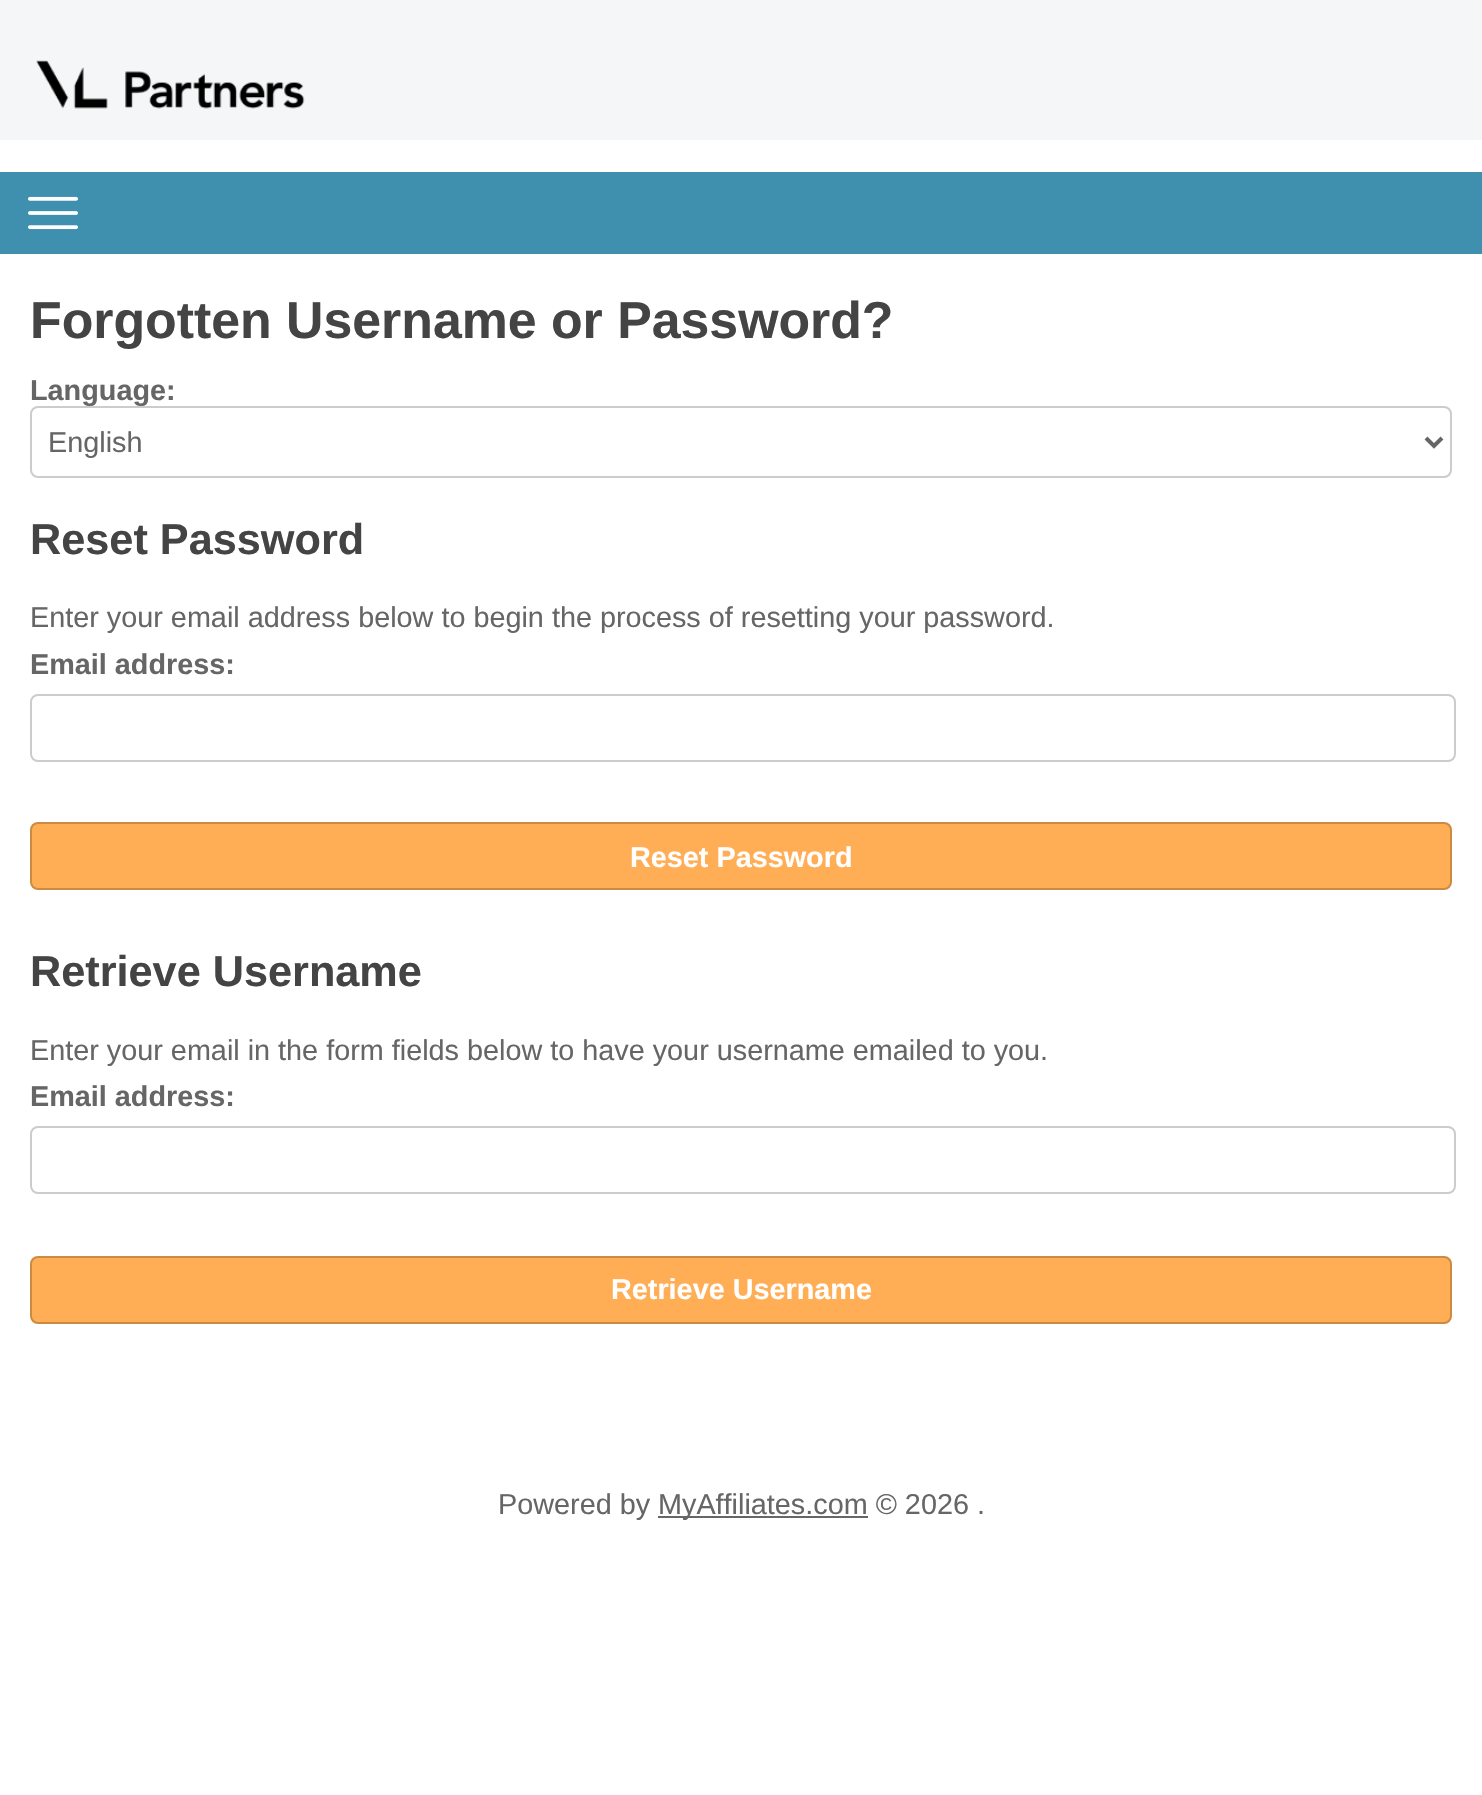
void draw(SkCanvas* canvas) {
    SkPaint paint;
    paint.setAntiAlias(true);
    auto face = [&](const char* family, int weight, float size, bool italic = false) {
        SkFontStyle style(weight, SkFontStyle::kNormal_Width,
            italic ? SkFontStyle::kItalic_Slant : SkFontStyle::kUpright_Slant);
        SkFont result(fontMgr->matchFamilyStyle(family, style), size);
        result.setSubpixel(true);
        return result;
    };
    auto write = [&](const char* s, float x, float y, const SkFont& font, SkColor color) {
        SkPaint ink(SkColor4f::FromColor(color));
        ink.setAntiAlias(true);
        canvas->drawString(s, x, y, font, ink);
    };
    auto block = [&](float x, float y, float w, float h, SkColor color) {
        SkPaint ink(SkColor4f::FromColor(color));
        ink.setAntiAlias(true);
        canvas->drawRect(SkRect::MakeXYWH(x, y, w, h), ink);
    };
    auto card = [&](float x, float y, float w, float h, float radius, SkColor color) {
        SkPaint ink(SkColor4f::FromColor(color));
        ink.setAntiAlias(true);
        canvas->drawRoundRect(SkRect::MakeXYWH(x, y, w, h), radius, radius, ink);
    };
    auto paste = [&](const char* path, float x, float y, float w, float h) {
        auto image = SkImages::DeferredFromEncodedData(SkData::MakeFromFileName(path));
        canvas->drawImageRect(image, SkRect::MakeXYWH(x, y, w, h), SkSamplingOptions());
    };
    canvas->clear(SK_ColorWHITE);
    block(0, 0, 1482, 140, SkColorSetRGB(245, 246, 247));
    paste("pic1.png", 36, 60, 269, 49);
    block(0, 172, 1482, 82, SkColorSetRGB(63, 143, 174));
    paste("pic2.png", 28, 196, 50, 34);
    auto kFont1 = face("Liberation Sans", 700, 51.8f);
    write("Forgotten Username or Password?", 30, 338, kFont1, SkColorSetRGB(68, 68, 68));
    auto kFont2 = face("Liberation Sans", 700, 28.8f);
    write("Language:", 30, 400, kFont2, SkColorSetRGB(102, 102, 102));
    paint.setColor(SK_ColorWHITE);
    canvas->drawRoundRect(SkRect::MakeXYWH(31, 407, 1420, 70), 7, 7, paint);
    paint.setStyle(SkPaint::kStroke_Style);
    paint.setStrokeWidth(2);
    paint.setColor(SkColorSetRGB(204, 204, 204));
    canvas->drawRoundRect(SkRect::MakeXYWH(31, 407, 1420, 70), 7, 7, paint);
    paint.setStrokeWidth(4);
    paint.setColor(SkColorSetRGB(102, 102, 102));
    canvas->drawPath(SkPathBuilder().moveTo(1426, 438).lineTo(1434, 446).lineTo(1442, 438).detach(), paint);
    auto kFont3 = face("Liberation Sans", 400, 28.8f);
    write("English", 48, 452, kFont3, SkColorSetRGB(102, 102, 102));
    auto kFont4 = face("Liberation Sans", 700, 43.25f);
    write("Reset Password", 30, 554, kFont4, SkColorSetRGB(68, 68, 68));
    write("Enter your email address below to begin the process of resetting your password.", 30, 627, kFont3, SkColorSetRGB(102, 102, 102));
    write("Email address:", 30, 674, kFont2, SkColorSetRGB(102, 102, 102));
    paint.setStrokeWidth(2);
    paint.setColor(SkColorSetRGB(204, 204, 204));
    canvas->drawRoundRect(SkRect::MakeXYWH(31, 695, 1424, 66), 7, 7, paint);
    card(30, 822, 1422, 68, 8, SkColorSetRGB(255, 174, 85));
    paint.setColor(SkColorSetARGB(51, 0, 0, 0));
    canvas->drawRoundRect(SkRect::MakeXYWH(31, 823, 1420, 66), 7, 7, paint);
    write("Reset Password", 630, 867, kFont2, SK_ColorWHITE);
    write("Retrieve Username", 30, 986, kFont4, SkColorSetRGB(68, 68, 68));
    write("Enter your email in the form fields below to have your username emailed to you.", 30, 1060, kFont3, SkColorSetRGB(102, 102, 102));
    write("Email address:", 30, 1106, kFont2, SkColorSetRGB(102, 102, 102));
    paint.setColor(SkColorSetRGB(204, 204, 204));
    canvas->drawRoundRect(SkRect::MakeXYWH(31, 1127, 1424, 66), 7, 7, paint);
    card(30, 1256, 1422, 68, 8, SkColorSetRGB(255, 174, 85));
    paint.setColor(SkColorSetARGB(51, 0, 0, 0));
    canvas->drawRoundRect(SkRect::MakeXYWH(31, 1257, 1420, 66), 7, 7, paint);
    write("Retrieve Username", 611, 1299, kFont2, SK_ColorWHITE);
    write("Powered by", 498, 1514, kFont3, SkColorSetRGB(102, 102, 102));
    block(658, 1516, 210, 2, SkColorSetRGB(102, 102, 102));
    write("MyAffiliates.com © 2026 .", 658, 1514, kFont3, SkColorSetRGB(102, 102, 102));
}
